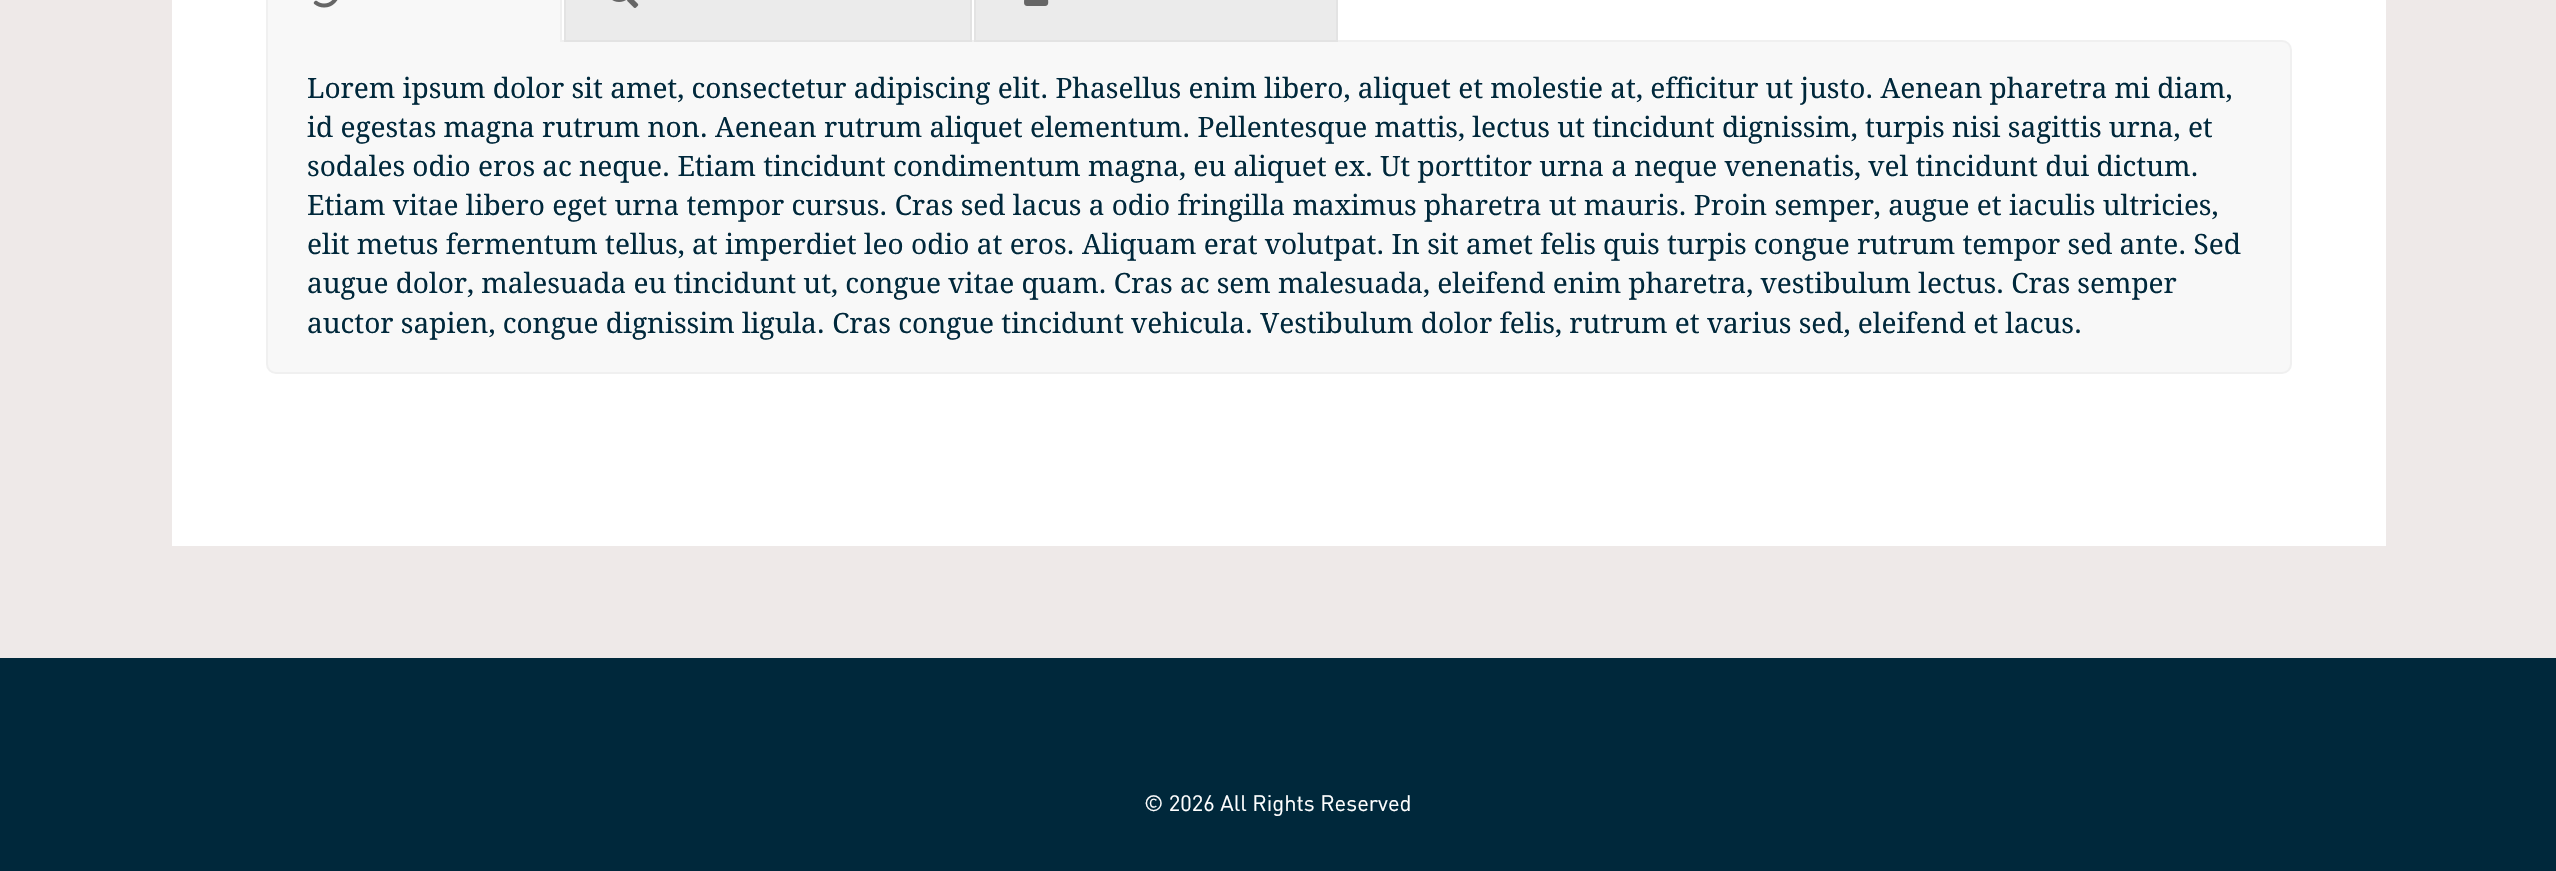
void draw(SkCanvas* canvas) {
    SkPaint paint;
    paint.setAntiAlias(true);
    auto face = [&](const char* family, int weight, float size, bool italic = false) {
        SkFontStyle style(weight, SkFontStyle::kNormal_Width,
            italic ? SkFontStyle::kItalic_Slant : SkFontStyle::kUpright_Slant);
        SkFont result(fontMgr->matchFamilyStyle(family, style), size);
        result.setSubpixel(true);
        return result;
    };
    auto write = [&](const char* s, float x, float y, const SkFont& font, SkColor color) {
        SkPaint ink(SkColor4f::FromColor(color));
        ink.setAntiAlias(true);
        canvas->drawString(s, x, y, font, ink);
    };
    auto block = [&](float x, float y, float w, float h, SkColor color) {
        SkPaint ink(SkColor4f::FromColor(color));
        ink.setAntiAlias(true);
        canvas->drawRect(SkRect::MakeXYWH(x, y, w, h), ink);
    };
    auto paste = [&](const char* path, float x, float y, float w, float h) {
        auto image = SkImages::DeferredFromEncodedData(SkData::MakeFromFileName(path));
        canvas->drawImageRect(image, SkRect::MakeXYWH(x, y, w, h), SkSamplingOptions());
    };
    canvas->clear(SkColorSetRGB(238, 233, 232));
    block(172, 0, 2214, 546, SK_ColorWHITE);
    paint.setColor(SkColorSetRGB(248, 248, 248));
    canvas->drawPath(SkPathBuilder().moveTo(267, 41).lineTo(2282, 41).cubicTo(2287, 41, 2291, 45, 2291, 50).lineTo(2291, 364).cubicTo(2291, 369, 2287, 373, 2282, 373).lineTo(276, 373).cubicTo(271, 373, 267, 369, 267, 364).close().detach(), paint);
    paint.setStyle(SkPaint::kStroke_Style);
    paint.setStrokeWidth(2);
    paint.setColor(SkColorSetRGB(240, 240, 240));
    canvas->drawPath(SkPathBuilder().moveTo(267, 41).lineTo(2282, 41).cubicTo(2287, 41, 2291, 45, 2291, 50).lineTo(2291, 364).cubicTo(2291, 369, 2287, 373, 2282, 373).lineTo(276, 373).cubicTo(271, 373, 267, 369, 267, 364).close().detach(), paint);
    block(268, 0, 292, 42, SkColorSetRGB(248, 248, 248));
    paint.setStyle(SkPaint::kFill_Style);
    canvas->drawPath(SkPathBuilder().moveTo(562, 42).lineTo(562, -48).cubicTo(562, -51, 561, -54, 559, -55).lineTo(558, -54).cubicTo(559, -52, 560, -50, 560, -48).lineTo(560, 40).close().detach(), paint);
    canvas->drawPath(SkPathBuilder().moveTo(266, 42).lineTo(268, 40).lineTo(268, -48).cubicTo(268, -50, 269, -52, 270, -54).lineTo(269, -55).cubicTo(267, -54, 266, -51, 266, -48).close().detach(), paint);
    paste("pic1.png", 313, 0, 25, 8);
    paint.setColor(SkColorSetRGB(235, 235, 235));
    canvas->drawRect(SkRect::MakeXYWH(565, -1, 406, 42), paint);
    paint.setStyle(SkPaint::kStroke_Style);
    paint.setColor(SkColorSetRGB(227, 227, 227));
    canvas->drawRect(SkRect::MakeXYWH(565, -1, 406, 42), paint);
    paste("pic2.png", 612, 0, 27, 8);
    paint.setStyle(SkPaint::kFill_Style);
    paint.setColor(SkColorSetRGB(235, 235, 235));
    canvas->drawRect(SkRect::MakeXYWH(975, -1, 362, 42), paint);
    paint.setStyle(SkPaint::kStroke_Style);
    paint.setColor(SkColorSetRGB(227, 227, 227));
    canvas->drawRect(SkRect::MakeXYWH(975, -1, 362, 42), paint);
    paste("pic3.png", 1024, 0, 25, 6);
    auto kFont1 = face("Droid Serif", 400, 28);
    write("Lorem ipsum dolor sit amet, consectetur adipiscing elit. Phasellus enim libero, aliquet et molestie at, efficitur ut justo. Aenean pharetra mi diam,", 307, 98, kFont1, SkColorSetRGB(0, 40, 59));
    write("id egestas magna rutrum non. Aenean rutrum aliquet elementum. Pellentesque mattis, lectus ut tincidunt dignissim, turpis nisi sagittis urna, et", 307, 137, kFont1, SkColorSetRGB(0, 40, 59));
    write("sodales odio eros ac neque. Etiam tincidunt condimentum magna, eu aliquet ex. Ut porttitor urna a neque venenatis, vel tincidunt dui dictum.", 307, 176, kFont1, SkColorSetRGB(0, 40, 59));
    write("Etiam vitae libero eget urna tempor cursus. Cras sed lacus a odio fringilla maximus pharetra ut mauris. Proin semper, augue et iaculis ultricies,", 307, 215, kFont1, SkColorSetRGB(0, 40, 59));
    write("elit metus fermentum tellus, at imperdiet leo odio at eros. Aliquam erat volutpat. In sit amet felis quis turpis congue rutrum tempor sed ante. Sed", 307, 254, kFont1, SkColorSetRGB(0, 40, 59));
    write("augue dolor, malesuada eu tincidunt ut, congue vitae quam. Cras ac sem malesuada, eleifend enim pharetra, vestibulum lectus. Cras semper", 307, 293, kFont1, SkColorSetRGB(0, 40, 59));
    write("auctor sapien, congue dignissim ligula. Cras congue tincidunt vehicula. Vestibulum dolor felis, rutrum et varius sed, eleifend et lacus.", 307, 333, kFont1, SkColorSetRGB(0, 40, 59));
    block(0, 658, 2556, 213, SkColorSetRGB(0, 40, 59));
    auto kFont2 = face("DIN", 400, 22);
    write("© 2026 All Rights Reserved", 1144, 811, kFont2, SK_ColorWHITE);
}
